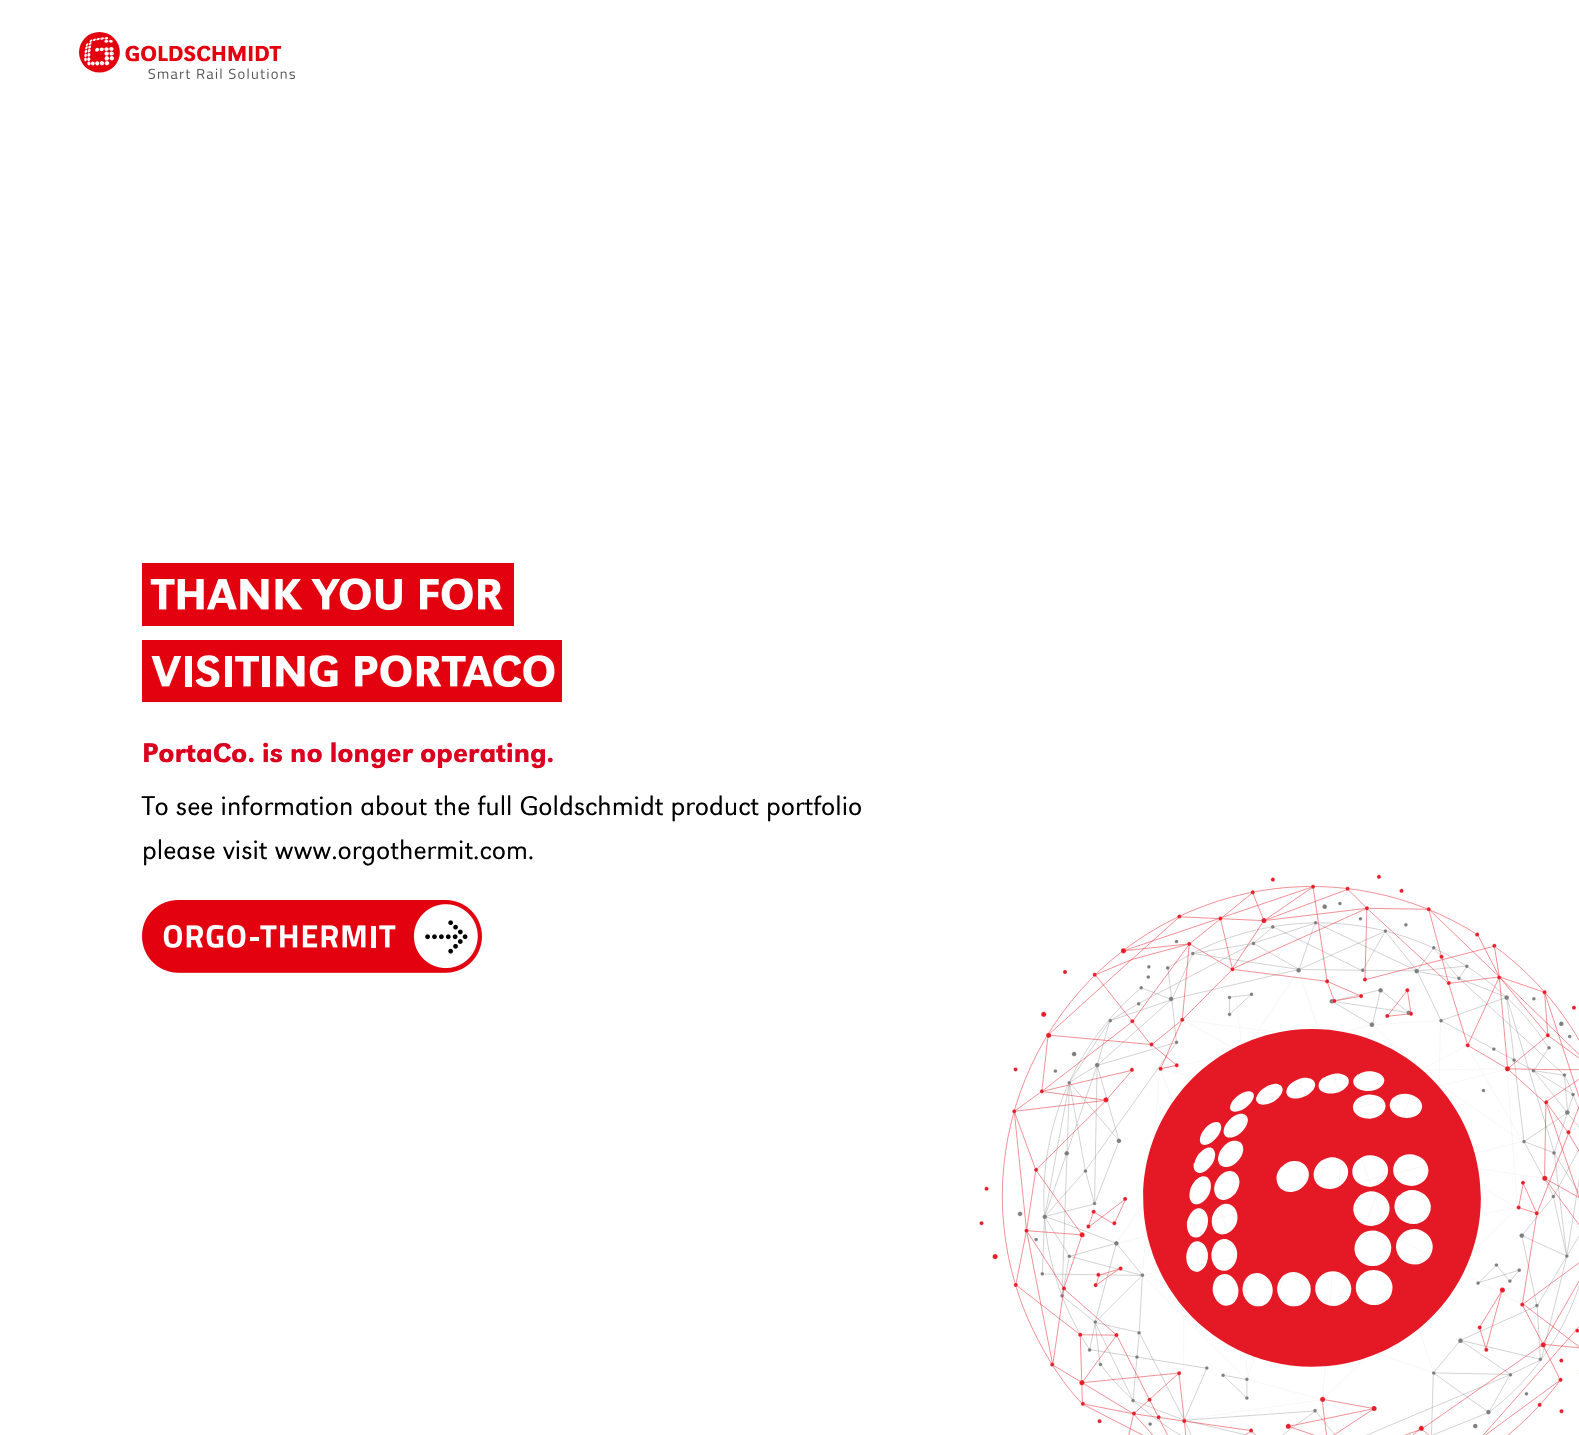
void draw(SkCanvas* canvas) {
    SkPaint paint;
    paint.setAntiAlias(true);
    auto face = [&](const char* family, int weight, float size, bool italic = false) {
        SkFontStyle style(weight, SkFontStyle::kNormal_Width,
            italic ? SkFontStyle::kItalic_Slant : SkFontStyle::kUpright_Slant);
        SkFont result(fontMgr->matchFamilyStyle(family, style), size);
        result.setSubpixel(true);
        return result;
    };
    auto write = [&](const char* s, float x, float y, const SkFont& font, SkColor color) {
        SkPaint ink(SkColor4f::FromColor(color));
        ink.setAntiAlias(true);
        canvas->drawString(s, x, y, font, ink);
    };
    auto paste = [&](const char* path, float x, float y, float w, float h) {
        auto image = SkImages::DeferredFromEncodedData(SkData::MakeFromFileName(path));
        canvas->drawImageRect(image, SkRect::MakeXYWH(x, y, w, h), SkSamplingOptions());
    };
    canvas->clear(SK_ColorWHITE);
    paste("pic1.png", 79, 32, 216, 47);
    paste("pic2.png", 142, 563, 420, 139);
    auto kFont1 = face("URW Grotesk", 500, 28);
    write("PortaCo. is no longer operating.", 142, 762, kFont1, SkColorSetRGB(220, 0, 31));
    auto kFont2 = face("URW Grotesk", 300, 28);
    write("To see information about the full Goldschmidt product portfolio", 142, 815, kFont2, SK_ColorBLACK);
    write("please visit www.orgothermit.com.", 142, 859, kFont2, SK_ColorBLACK);
    paste("pic3.png", 142, 900, 340, 73);
    paste("pic4.png", 979, 874, 600, 561);
}
